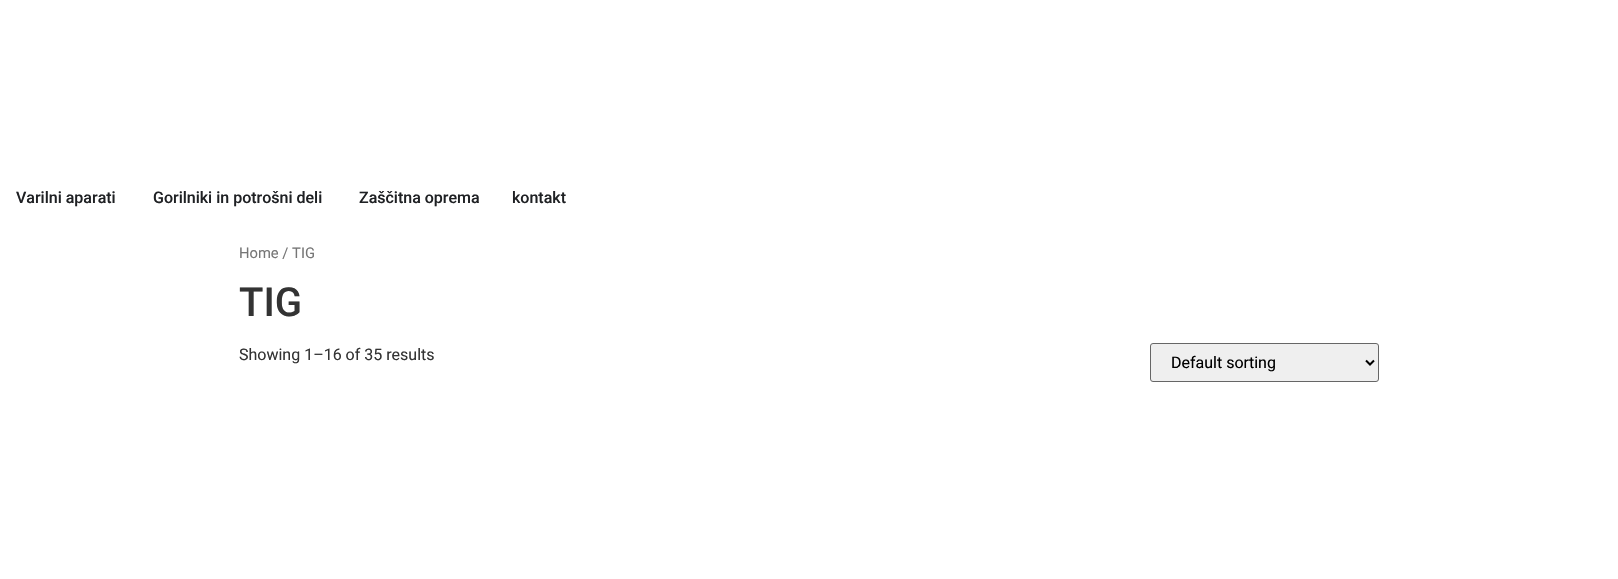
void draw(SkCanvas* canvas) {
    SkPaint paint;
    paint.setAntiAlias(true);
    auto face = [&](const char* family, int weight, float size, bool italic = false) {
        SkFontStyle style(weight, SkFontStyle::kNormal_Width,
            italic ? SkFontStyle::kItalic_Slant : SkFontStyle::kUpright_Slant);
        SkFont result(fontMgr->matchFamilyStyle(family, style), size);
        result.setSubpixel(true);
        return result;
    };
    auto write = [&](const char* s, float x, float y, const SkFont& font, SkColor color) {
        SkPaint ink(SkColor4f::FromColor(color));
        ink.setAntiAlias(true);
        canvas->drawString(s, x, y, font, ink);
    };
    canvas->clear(SK_ColorWHITE);
    auto kFont1 = face("Roboto", 500, 16);
    write("Varilni aparati", 16, 203, kFont1, SkColorSetRGB(31, 33, 36));
    write("Gorilniki in potrošni deli", 153, 203, kFont1, SkColorSetRGB(31, 33, 36));
    write("Zaščitna oprema", 359, 203, kFont1, SkColorSetRGB(31, 33, 36));
    write("kontakt", 512, 203, kFont1, SkColorSetRGB(31, 33, 36));
    auto kFont2 = face("Roboto", 400, 14.75f);
    write("Home / TIG", 239, 258, kFont2, SkColorSetRGB(118, 118, 118));
    auto kFont3 = face("Roboto", 500, 40);
    write("TIG", 239, 316, kFont3, SkColorSetRGB(51, 51, 51));
    auto kFont4 = face("Roboto", 400, 16);
    write("Showing 1–16 of 35 results", 239, 360, kFont4, SkColorSetRGB(51, 51, 51));
    paint.setColor(SkColorSetRGB(239, 239, 239));
    canvas->drawRoundRect(SkRect::MakeXYWH(1150.5f, 343.5f, 228, 38), 2.5f, 2.5f, paint);
    paint.setStyle(SkPaint::kStroke_Style);
    paint.setStrokeWidth(1);
    paint.setColor(SkColorSetRGB(102, 102, 102));
    canvas->drawRoundRect(SkRect::MakeXYWH(1150.5f, 343.5f, 228, 38), 2.5f, 2.5f, paint);
    paint.setStrokeWidth(2);
    paint.setColor(SK_ColorBLACK);
    canvas->drawPath(SkPathBuilder().moveTo(1366, 360.5f).lineTo(1370, 364.5f).lineTo(1374, 360.5f).detach(), paint);
    write("Default sorting", 1171, 368, kFont4, SK_ColorBLACK);
}
